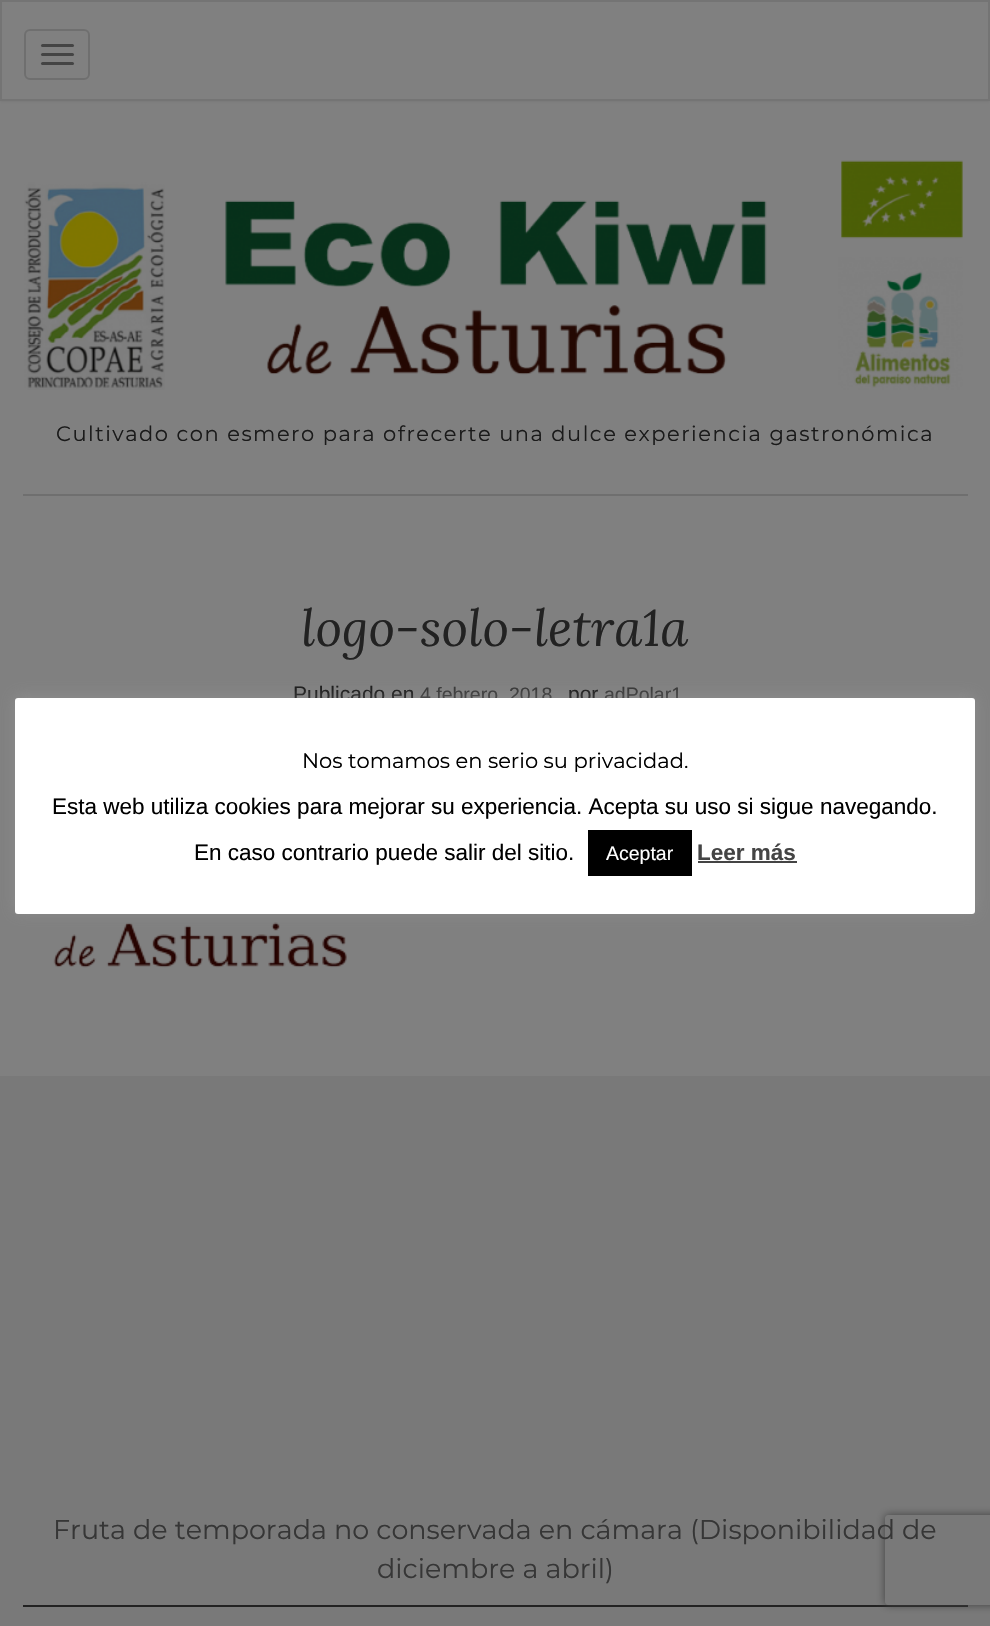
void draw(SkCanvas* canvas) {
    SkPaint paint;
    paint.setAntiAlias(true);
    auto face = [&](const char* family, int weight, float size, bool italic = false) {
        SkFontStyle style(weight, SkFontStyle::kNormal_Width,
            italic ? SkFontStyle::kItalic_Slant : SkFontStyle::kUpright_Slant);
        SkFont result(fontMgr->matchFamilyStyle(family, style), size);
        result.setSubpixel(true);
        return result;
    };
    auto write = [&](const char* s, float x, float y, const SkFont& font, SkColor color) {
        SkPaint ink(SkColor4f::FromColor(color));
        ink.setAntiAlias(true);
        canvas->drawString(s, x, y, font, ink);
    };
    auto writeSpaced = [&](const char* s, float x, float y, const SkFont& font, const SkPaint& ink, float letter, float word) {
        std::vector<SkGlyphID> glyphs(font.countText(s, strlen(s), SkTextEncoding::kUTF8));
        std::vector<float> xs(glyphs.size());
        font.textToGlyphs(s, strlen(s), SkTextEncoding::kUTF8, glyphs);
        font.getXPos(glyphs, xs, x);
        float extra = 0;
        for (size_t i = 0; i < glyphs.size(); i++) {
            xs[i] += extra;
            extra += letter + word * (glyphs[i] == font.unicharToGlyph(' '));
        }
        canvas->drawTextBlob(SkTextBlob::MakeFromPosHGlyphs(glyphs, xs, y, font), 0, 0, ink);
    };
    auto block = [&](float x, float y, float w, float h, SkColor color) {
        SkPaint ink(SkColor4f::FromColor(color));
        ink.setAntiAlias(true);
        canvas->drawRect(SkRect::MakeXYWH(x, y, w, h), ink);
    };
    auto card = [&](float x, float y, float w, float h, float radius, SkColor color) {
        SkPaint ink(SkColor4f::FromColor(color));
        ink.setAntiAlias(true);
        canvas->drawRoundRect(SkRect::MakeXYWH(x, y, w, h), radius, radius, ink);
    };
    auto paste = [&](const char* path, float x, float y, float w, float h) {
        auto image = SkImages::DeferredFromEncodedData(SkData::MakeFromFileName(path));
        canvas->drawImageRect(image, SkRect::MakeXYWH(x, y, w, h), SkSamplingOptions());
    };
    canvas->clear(SkColorSetRGB(128, 128, 128));
    paint.setColor(SkColorSetRGB(114, 114, 114));
    paint.setMaskFilter(SkMaskFilter::MakeBlur(kNormal_SkBlurStyle, 1.5f));
    canvas->drawRect(SkRect::MakeXYWH(0, 0, 990, 101), paint);
    paint.setMaskFilter(nullptr);
    paint.setColor(SkColorSetRGB(128, 128, 128));
    canvas->drawRect(SkRect::MakeXYWH(1, 1, 988, 99), paint);
    paint.setStyle(SkPaint::kStroke_Style);
    paint.setStrokeWidth(2);
    paint.setColor(SkColorSetRGB(116, 116, 116));
    canvas->drawRect(SkRect::MakeXYWH(1, 1, 988, 99), paint);
    paint.setColor(SkColorSetRGB(111, 111, 111));
    canvas->drawRoundRect(SkRect::MakeXYWH(25, 30, 64, 49), 5, 5, paint);
    card(41, 44, 33, 3, 1.5f, SkColorSetRGB(68, 68, 68));
    card(41, 53, 33, 3, 1.5f, SkColorSetRGB(68, 68, 68));
    card(41, 62, 33, 3, 1.5f, SkColorSetRGB(68, 68, 68));
    paste("pic1.png", 24, 160, 939, 230);
    auto kFont1 = face("Montserrat", 400, 21);
    paint.setStyle(SkPaint::kFill_Style);
    paint.setColor(SkColorSetRGB(26, 26, 26));
    writeSpaced("Cultivado con esmero para ofrecerte una dulce experiencia gastronómica", 56, 441, kFont1, paint, 1.5f, 0);
    block(23, 494, 945, 2, SkColorSetRGB(111, 111, 111));
    auto kFont2 = face("Lora", 400, 51, true);
    write("logo-solo-letra1a", 301, 646, kFont2, SkColorSetRGB(34, 34, 34));
    auto kFont3 = face("Liberation Sans", 400, 21);
    write("Publicado en", 293, 701, kFont3, SkColorSetRGB(26, 26, 26));
    auto kFont4 = face("Liberation Sans", 400, 19.5f);
    write("4 febrero, 2018", 420, 701, kFont4, SkColorSetRGB(54, 54, 54));
    write("por", 568, 701, kFont3, SkColorSetRGB(26, 26, 26));
    write("adPolar1", 604, 701, kFont4, SkColorSetRGB(54, 54, 54));
    paste("pic2.png", 53, 922, 294, 46);
    paint.setColor(SkColorSetARGB(77, 172, 171, 171));
    paint.setMaskFilter(SkMaskFilter::MakeBlur(kNormal_SkBlurStyle, 7.5f));
    canvas->drawRoundRect(SkRect::MakeXYWH(15, 696, 960, 216), 3, 3, paint);
    paint.setMaskFilter(nullptr);
    card(15, 698, 960, 216, 3, SK_ColorWHITE);
    write("Nos tomamos en serio su privacidad.", 302, 768, kFont1, SK_ColorBLACK);
    auto kFont5 = face("Liberation Sans", 400, 22.5f);
    write("Esta web utiliza cookies para mejorar su experiencia. Acepta su uso si sigue navegando.", 52, 814, kFont5, SK_ColorBLACK);
    write("En caso contrario puede salir del sitio.", 194, 860, kFont5, SK_ColorBLACK);
    block(588, 830, 104, 46, SK_ColorBLACK);
    write("Aceptar", 606, 860, kFont4, SK_ColorWHITE);
    auto kFont6 = face("Liberation Sans", 700, 22.5f);
    write("Leer más", 697, 860, kFont6, SkColorSetRGB(68, 68, 68));
    block(698, 861, 99, 2, SkColorSetRGB(68, 68, 68));
    block(0, 1076, 990, 550, SkColorSetRGB(121, 121, 121));
    block(23, 1605, 945, 2, SkColorSetRGB(34, 34, 34));
    canvas->save();
    canvas->clipPath(SkPathBuilder(SkPathFillType::kEvenOdd).moveTo(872, 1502).lineTo(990, 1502).lineTo(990, 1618).lineTo(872, 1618).close().moveTo(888, 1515).lineTo(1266, 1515).cubicTo(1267.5f, 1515, 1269, 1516.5f, 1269, 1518).lineTo(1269, 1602).cubicTo(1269, 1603.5f, 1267.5f, 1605, 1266, 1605).lineTo(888, 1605).cubicTo(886.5f, 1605, 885, 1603.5f, 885, 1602).lineTo(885, 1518).cubicTo(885, 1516.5f, 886.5f, 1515, 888, 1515).close().detach(), true);
    paint.setColor(SkColorSetRGB(64, 64, 64));
    paint.setMaskFilter(SkMaskFilter::MakeBlur(kNormal_SkBlurStyle, 4));
    canvas->drawRoundRect(SkRect::MakeXYWH(885, 1515, 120, 90), 3, 3, paint);
    paint.setMaskFilter(nullptr);
    canvas->restore();
    auto kFont7 = face("Montserrat", 400, 27);
    write("Fruta de temporada no conservada en cámara (Disponibilidad de", 53, 1539, kFont7, SkColorSetRGB(54, 54, 54));
    write("diciembre a abril)", 377, 1578, kFont7, SkColorSetRGB(54, 54, 54));
}
